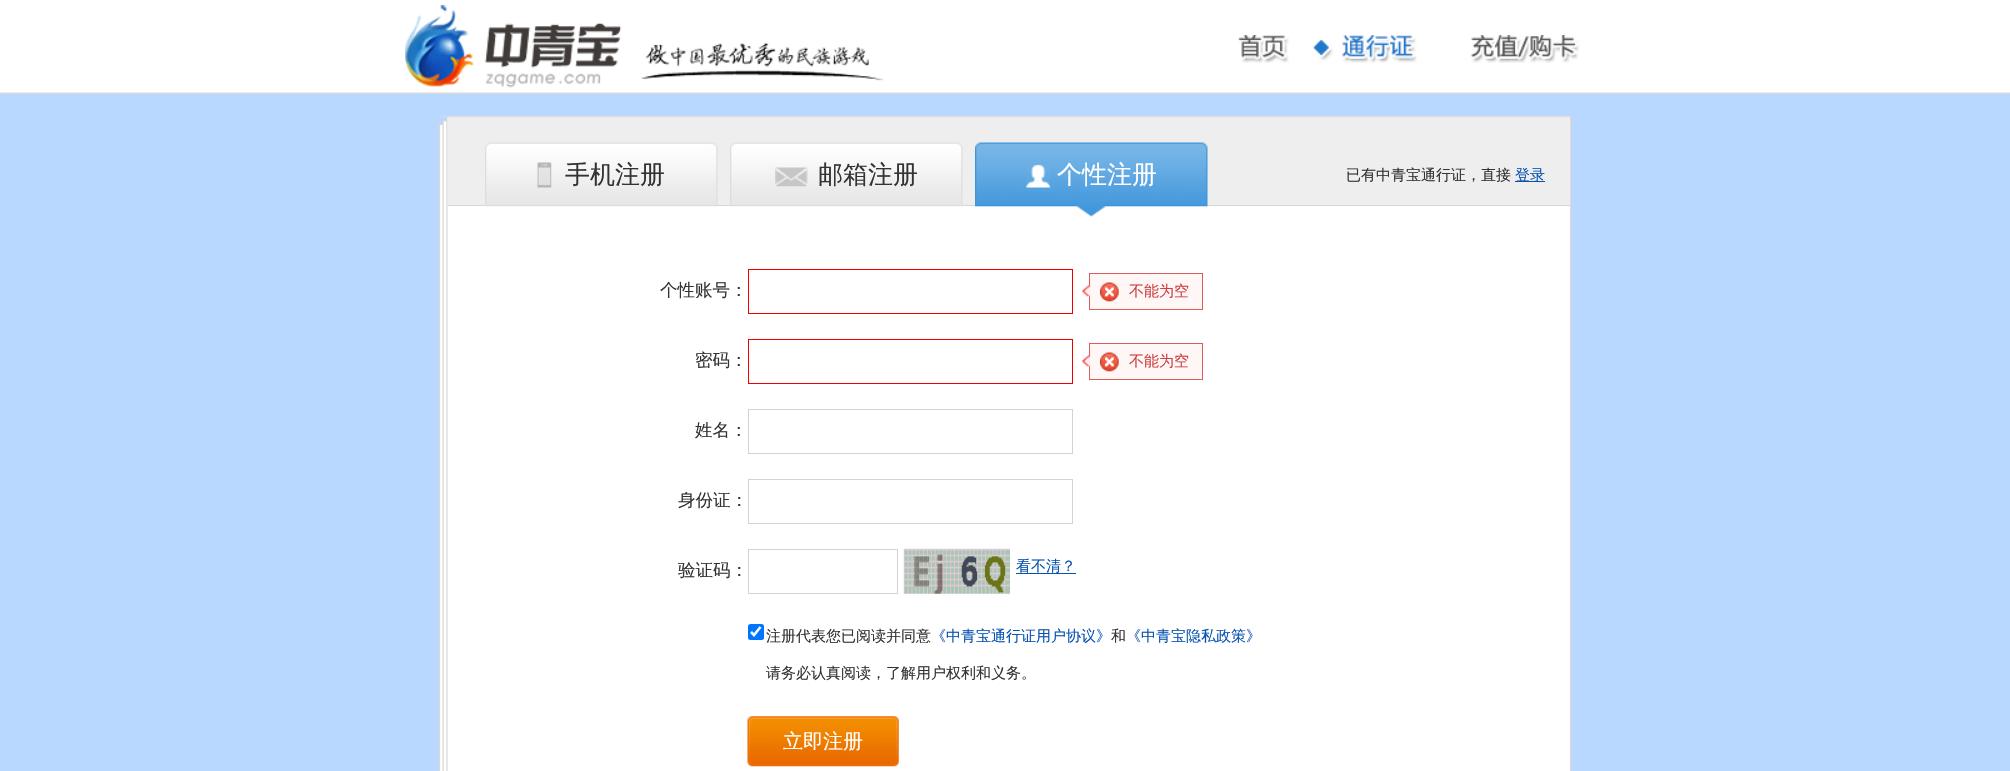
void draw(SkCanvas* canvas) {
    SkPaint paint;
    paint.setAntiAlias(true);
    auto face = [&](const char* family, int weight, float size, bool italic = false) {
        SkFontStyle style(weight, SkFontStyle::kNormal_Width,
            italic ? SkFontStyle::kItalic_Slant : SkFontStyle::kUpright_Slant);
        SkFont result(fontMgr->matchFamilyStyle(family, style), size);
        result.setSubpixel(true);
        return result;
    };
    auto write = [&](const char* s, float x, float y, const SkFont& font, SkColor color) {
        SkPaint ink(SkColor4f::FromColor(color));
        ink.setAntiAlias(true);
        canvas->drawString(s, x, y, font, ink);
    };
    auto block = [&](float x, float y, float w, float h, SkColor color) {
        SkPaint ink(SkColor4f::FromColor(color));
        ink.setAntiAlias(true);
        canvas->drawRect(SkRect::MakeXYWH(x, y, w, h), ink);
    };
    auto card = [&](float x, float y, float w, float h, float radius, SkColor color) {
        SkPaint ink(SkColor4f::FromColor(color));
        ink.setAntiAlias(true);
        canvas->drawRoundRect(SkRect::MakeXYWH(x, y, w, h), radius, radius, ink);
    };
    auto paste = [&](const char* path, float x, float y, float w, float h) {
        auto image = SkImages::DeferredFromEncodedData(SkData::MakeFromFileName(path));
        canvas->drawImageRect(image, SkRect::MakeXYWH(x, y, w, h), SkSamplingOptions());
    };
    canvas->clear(SK_ColorWHITE);
    paste("pic1.png", 0, 92, 2010, 2);
    paste("pic2.png", 405, 5, 479, 83);
    paste("pic3.png", 1238, 35, 51, 28);
    paste("pic4.png", 1313, 35, 104, 28);
    paste("pic5.png", 1471, 35, 109, 28);
    block(0, 94, 2010, 677, SkColorSetRGB(184, 216, 255));
    paste("pic6.png", 438, 116, 1134, 655);
    paste("pic7.png", 438, 116, 1134, 10);
    block(448, 118, 1122, 87, SkColorSetRGB(238, 238, 238));
    block(448, 205, 1122, 1, SkColorSetRGB(214, 214, 214));
    paste("pic8.png", 485, 142, 233, 65);
    paste("pic9.png", 537, 162, 15, 26);
    auto kFont1 = face("WenQuanYi Zen Hei", 500, 25);
    write("手机注册", 565, 183, kFont1, SkColorSetRGB(51, 51, 51));
    paste("pic8.png", 730, 142, 233, 65);
    paste("pic10.png", 775, 167, 33, 20);
    write("邮箱注册", 818, 183, kFont1, SkColorSetRGB(51, 51, 51));
    paste("pic11.png", 975, 142, 233, 75);
    paste("pic12.png", 1026, 164, 25, 24);
    write("个性注册", 1057, 183, kFont1, SK_ColorWHITE);
    auto kFont2 = face("WenQuanYi Zen Hei", 500, 15);
    write("已有中青宝通行证，直接", 1346, 180, kFont2, SkColorSetRGB(51, 51, 51));
    block(1515, 181, 30, 1, SkColorSetRGB(7, 83, 177));
    write("登录", 1515, 180, kFont2, SkColorSetRGB(7, 83, 177));
    auto kFont3 = face("WenQuanYi Zen Hei", 500, 17.5f);
    write("个性账号：", 660, 296, kFont3, SkColorSetRGB(51, 51, 51));
    paint.setStyle(SkPaint::kStroke_Style);
    paint.setStrokeWidth(1);
    paint.setColor(SkColorSetRGB(238, 0, 0));
    canvas->drawRect(SkRect::MakeXYWH(748.5f, 269.5f, 324, 44), paint);
    block(1090, 274, 112, 35, SkColorSetRGB(255, 246, 246));
    paste("pic13.png", 1100, 282, 19, 20);
    paint.setColor(SkColorSetRGB(218, 92, 92));
    canvas->drawRect(SkRect::MakeXYWH(1089.5f, 273.5f, 113, 36), paint);
    paste("pic14.png", 1082, 284, 9, 13);
    write("不能为空", 1129, 296, kFont2, SkColorSetRGB(204, 64, 64));
    write("密码：", 695, 366, kFont3, SkColorSetRGB(51, 51, 51));
    paint.setColor(SkColorSetRGB(238, 0, 0));
    canvas->drawRect(SkRect::MakeXYWH(748.5f, 339.5f, 324, 44), paint);
    block(1090, 344, 112, 35, SkColorSetRGB(255, 246, 246));
    paste("pic13.png", 1100, 352, 19, 20);
    paint.setColor(SkColorSetRGB(218, 92, 92));
    canvas->drawRect(SkRect::MakeXYWH(1089.5f, 343.5f, 113, 36), paint);
    paste("pic14.png", 1082, 354, 9, 13);
    write("不能为空", 1129, 366, kFont2, SkColorSetRGB(204, 64, 64));
    write("姓名：", 695, 436, kFont3, SkColorSetRGB(51, 51, 51));
    paint.setColor(SkColorSetRGB(211, 211, 211));
    canvas->drawRect(SkRect::MakeXYWH(748.5f, 409.5f, 324, 44), paint);
    write("身份证：", 678, 506, kFont3, SkColorSetRGB(51, 51, 51));
    canvas->drawRect(SkRect::MakeXYWH(748.5f, 479.5f, 324, 44), paint);
    write("验证码：", 678, 576, kFont3, SkColorSetRGB(51, 51, 51));
    canvas->drawRect(SkRect::MakeXYWH(748.5f, 549.5f, 149, 44), paint);
    paste("pic15.png", 903, 548, 107, 46);
    write("看不清？", 1016, 571, kFont2, SkColorSetRGB(7, 83, 177));
    block(1016, 573, 60, 1, SkColorSetRGB(7, 83, 177));
    card(748, 624, 16, 16, 2.5f, SkColorSetRGB(0, 117, 255));
    paint.setStrokeWidth(2.6f);
    paint.setColor(SK_ColorWHITE);
    canvas->drawPath(SkPathBuilder().moveTo(751, 632).lineTo(754, 635).lineTo(760.5f, 627).detach(), paint);
    write("注册代表您已阅读并同意", 766, 641, kFont2, SkColorSetRGB(51, 51, 51));
    write("《中青宝通行证用户协议》", 931, 641, kFont2, SkColorSetRGB(7, 83, 177));
    write("和", 1111, 641, kFont2, SkColorSetRGB(51, 51, 51));
    write("《中青宝隐私政策》", 1126, 641, kFont2, SkColorSetRGB(7, 83, 177));
    write("请务必认真阅读，了解用户权利和义务。", 766, 678, kFont2, SkColorSetRGB(51, 51, 51));
    paste("pic16.png", 747, 716, 152, 51);
    auto kFont4 = face("WenQuanYi Zen Hei", 500, 20);
    write("立即注册", 783, 748, kFont4, SK_ColorWHITE);
}
